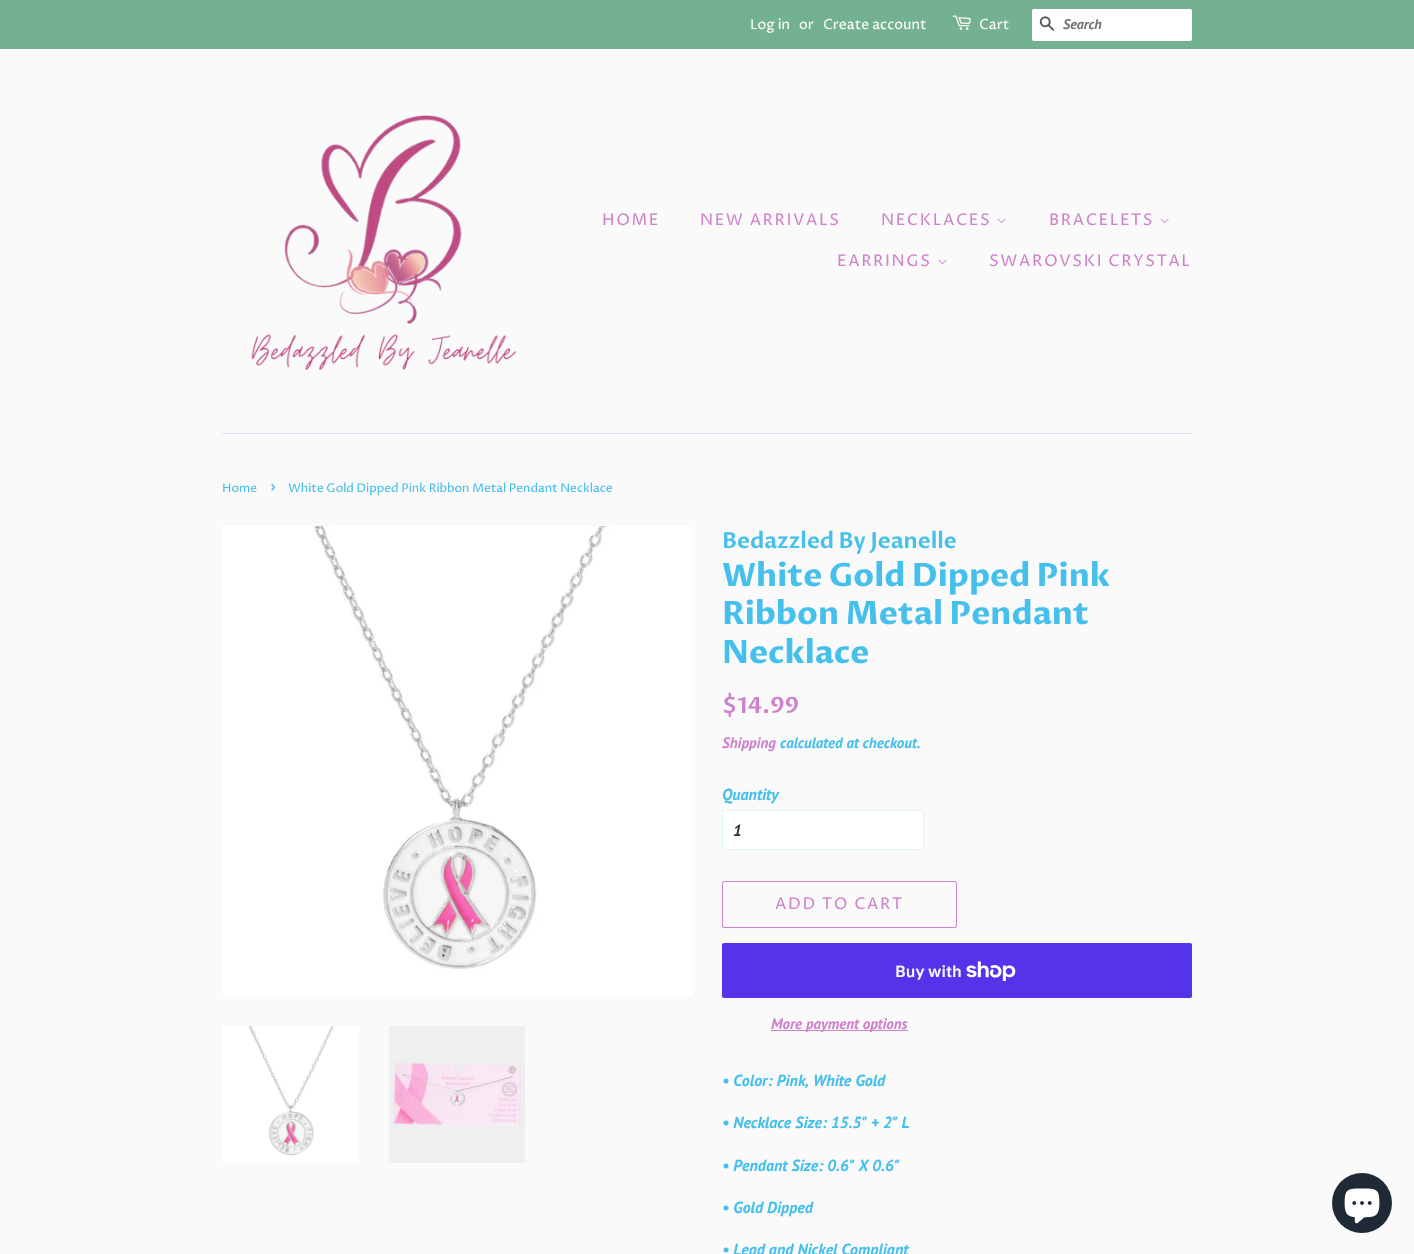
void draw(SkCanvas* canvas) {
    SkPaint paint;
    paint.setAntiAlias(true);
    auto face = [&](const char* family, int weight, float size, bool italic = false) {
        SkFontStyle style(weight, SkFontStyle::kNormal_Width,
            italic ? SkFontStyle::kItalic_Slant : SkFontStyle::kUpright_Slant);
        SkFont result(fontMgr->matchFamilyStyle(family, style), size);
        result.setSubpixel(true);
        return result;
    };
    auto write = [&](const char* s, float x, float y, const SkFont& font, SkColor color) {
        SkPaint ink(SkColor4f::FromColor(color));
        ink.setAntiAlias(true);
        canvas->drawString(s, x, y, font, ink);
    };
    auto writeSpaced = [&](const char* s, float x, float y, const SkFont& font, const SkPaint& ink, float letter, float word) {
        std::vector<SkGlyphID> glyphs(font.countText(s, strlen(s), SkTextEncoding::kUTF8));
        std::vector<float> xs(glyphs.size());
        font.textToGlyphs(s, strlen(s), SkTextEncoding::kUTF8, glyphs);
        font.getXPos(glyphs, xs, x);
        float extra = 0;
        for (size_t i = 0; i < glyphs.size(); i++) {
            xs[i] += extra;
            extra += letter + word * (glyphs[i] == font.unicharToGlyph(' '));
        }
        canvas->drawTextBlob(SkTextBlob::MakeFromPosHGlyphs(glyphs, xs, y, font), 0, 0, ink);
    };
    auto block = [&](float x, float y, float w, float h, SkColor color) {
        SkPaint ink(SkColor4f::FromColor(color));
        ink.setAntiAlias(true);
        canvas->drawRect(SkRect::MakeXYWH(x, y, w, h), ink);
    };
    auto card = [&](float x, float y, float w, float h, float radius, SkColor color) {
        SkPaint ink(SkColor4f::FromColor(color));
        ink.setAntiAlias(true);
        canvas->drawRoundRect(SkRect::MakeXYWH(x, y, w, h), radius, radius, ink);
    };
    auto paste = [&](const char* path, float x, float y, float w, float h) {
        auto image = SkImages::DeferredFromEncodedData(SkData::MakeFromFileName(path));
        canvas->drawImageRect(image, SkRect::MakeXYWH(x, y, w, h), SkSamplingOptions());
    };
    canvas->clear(SkColorSetRGB(250, 250, 250));
    block(0, 0, 1414, 49, SkColorSetRGB(115, 177, 144));
    auto kFont1 = face("Proza Libre", 400, 14);
    write("Log in", 750, 29, kFont1, SkColorSetRGB(250, 250, 250));
    write("or", 799, 29, kFont1, SkColorSetRGB(250, 250, 250));
    write("Create account", 823, 29, kFont1, SkColorSetRGB(250, 250, 250));
    paste("pic1.png", 952, 15, 19, 15);
    write("Cart", 979, 29, kFont1, SkColorSetRGB(250, 250, 250));
    card(1032, 9, 160, 32, 2, SK_ColorWHITE);
    paste("pic2.png", 1039, 16, 16, 15);
    auto kFont2 = face("PT Sans", 700, 14, true);
    write("Search", 1063, 29, kFont2, SkColorSetRGB(117, 117, 117));
    block(222, 433, 970, 1, SkColorSetRGB(233, 218, 255));
    paste("pic3.png", 251, 115, 266, 255);
    auto kFont3 = face("Proza Libre", 400, 16);
    paint.setColor(SkColorSetRGB(206, 130, 204));
    writeSpaced("HOME", 602, 225, kFont3, paint, 1.6f, 0);
    writeSpaced("NEW ARRIVALS", 700, 225, kFont3, paint, 1.6f, 0);
    writeSpaced("NECKLACES", 881, 225, kFont3, paint, 1.6f, 0);
    paste("pic4.png", 997, 218, 9, 5);
    writeSpaced("BRACELETS", 1049, 225, kFont3, paint, 1.6f, 0);
    paste("pic4.png", 1160, 218, 9, 5);
    writeSpaced("EARRINGS", 837, 266, kFont3, paint, 1.6f, 0);
    paste("pic4.png", 938, 259, 9, 5);
    writeSpaced("SWAROVSKI CRYSTAL", 989, 266, kFont3, paint, 1.6f, 0);
    auto kFont4 = face("Proza Libre", 400, 12);
    write("Home", 222, 492, kFont4, SkColorSetRGB(69, 191, 236));
    auto kFont5 = face("Proza Libre", 400, 17);
    write("›", 270, 492, kFont5, SkColorSetRGB(69, 191, 236));
    write("White Gold Dipped Pink Ribbon Metal Pendant Necklace", 288, 492, kFont4, SkColorSetRGB(69, 191, 236));
    paste("pic5.png", 222, 526, 470, 470);
    paste("pic6.png", 222, 1026, 137, 137);
    paste("pic7.png", 389, 1026, 136, 137);
    auto kFont6 = face("Proza Libre", 600, 22);
    write("Bedazzled By Jeanelle", 722, 548, kFont6, SkColorSetRGB(69, 191, 236));
    auto kFont7 = face("Proza Libre", 700, 32);
    write("White Gold Dipped Pink", 722, 586, kFont7, SkColorSetRGB(69, 191, 236));
    write("Ribbon Metal Pendant", 722, 624, kFont7, SkColorSetRGB(69, 191, 236));
    write("Necklace", 722, 663, kFont7, SkColorSetRGB(69, 191, 236));
    auto kFont8 = face("Proza Libre", 600, 22.5f);
    write("$14.99", 722, 713, kFont8, SkColorSetRGB(206, 130, 204));
    auto kFont9 = face("PT Sans", 700, 15, true);
    write("Shipping", 722, 748, kFont9, SkColorSetRGB(206, 130, 204));
    write("calculated at checkout.", 780, 748, kFont9, SkColorSetRGB(69, 191, 236));
    auto kFont10 = face("PT Sans", 700, 16, true);
    write("Quantity", 722, 800, kFont10, SkColorSetRGB(69, 191, 236));
    paint.setColor(SK_ColorWHITE);
    canvas->drawRoundRect(SkRect::MakeXYWH(722.5f, 810.5f, 201, 39), 1.5f, 1.5f, paint);
    paint.setStyle(SkPaint::kStroke_Style);
    paint.setStrokeWidth(1);
    paint.setColor(SkColorSetRGB(227, 245, 252));
    canvas->drawRoundRect(SkRect::MakeXYWH(722.5f, 810.5f, 201, 39), 1.5f, 1.5f, paint);
    write("1", 733, 836, kFont10, SkColorSetRGB(51, 51, 51));
    paint.setColor(SkColorSetRGB(206, 130, 204));
    canvas->drawRoundRect(SkRect::MakeXYWH(722.5f, 881.5f, 234, 46), 1.5f, 1.5f, paint);
    paint.setStyle(SkPaint::kFill_Style);
    writeSpaced("ADD TO CART", 775, 909, kFont3, paint, 1.6f, 0);
    card(722, 943, 470, 55, 2, SkColorSetRGB(84, 51, 235));
    auto kFont11 = face("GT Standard", 600, 16);
    write("Buy with", 895, 977, kFont11, SkColorSetRGB(250, 250, 250));
    paste("pic8.png", 966, 961, 50, 20);
    block(771, 1030, 137, 1, SkColorSetRGB(206, 130, 204));
    write("More payment options", 771, 1029, kFont9, SkColorSetRGB(206, 130, 204));
    write("• Color: Pink, White Gold", 722, 1086, kFont10, SkColorSetRGB(69, 191, 236));
    write("• Necklace Size: 15.5\" + 2\" L", 722, 1128, kFont10, SkColorSetRGB(69, 191, 236));
    write("• Pendant Size: 0.6\" X 0.6\"", 722, 1171, kFont10, SkColorSetRGB(69, 191, 236));
    write("• Gold Dipped", 722, 1213, kFont10, SkColorSetRGB(69, 191, 236));
    write("• Lead and Nickel Compliant", 722, 1255, kFont10, SkColorSetRGB(69, 191, 236));
    paint.setColor(SkColorSetRGB(32, 42, 54));
    canvas->drawCircle(1362, 1203, 30, paint);
    paste("pic9.png", 1344, 1188, 36, 36);
}
